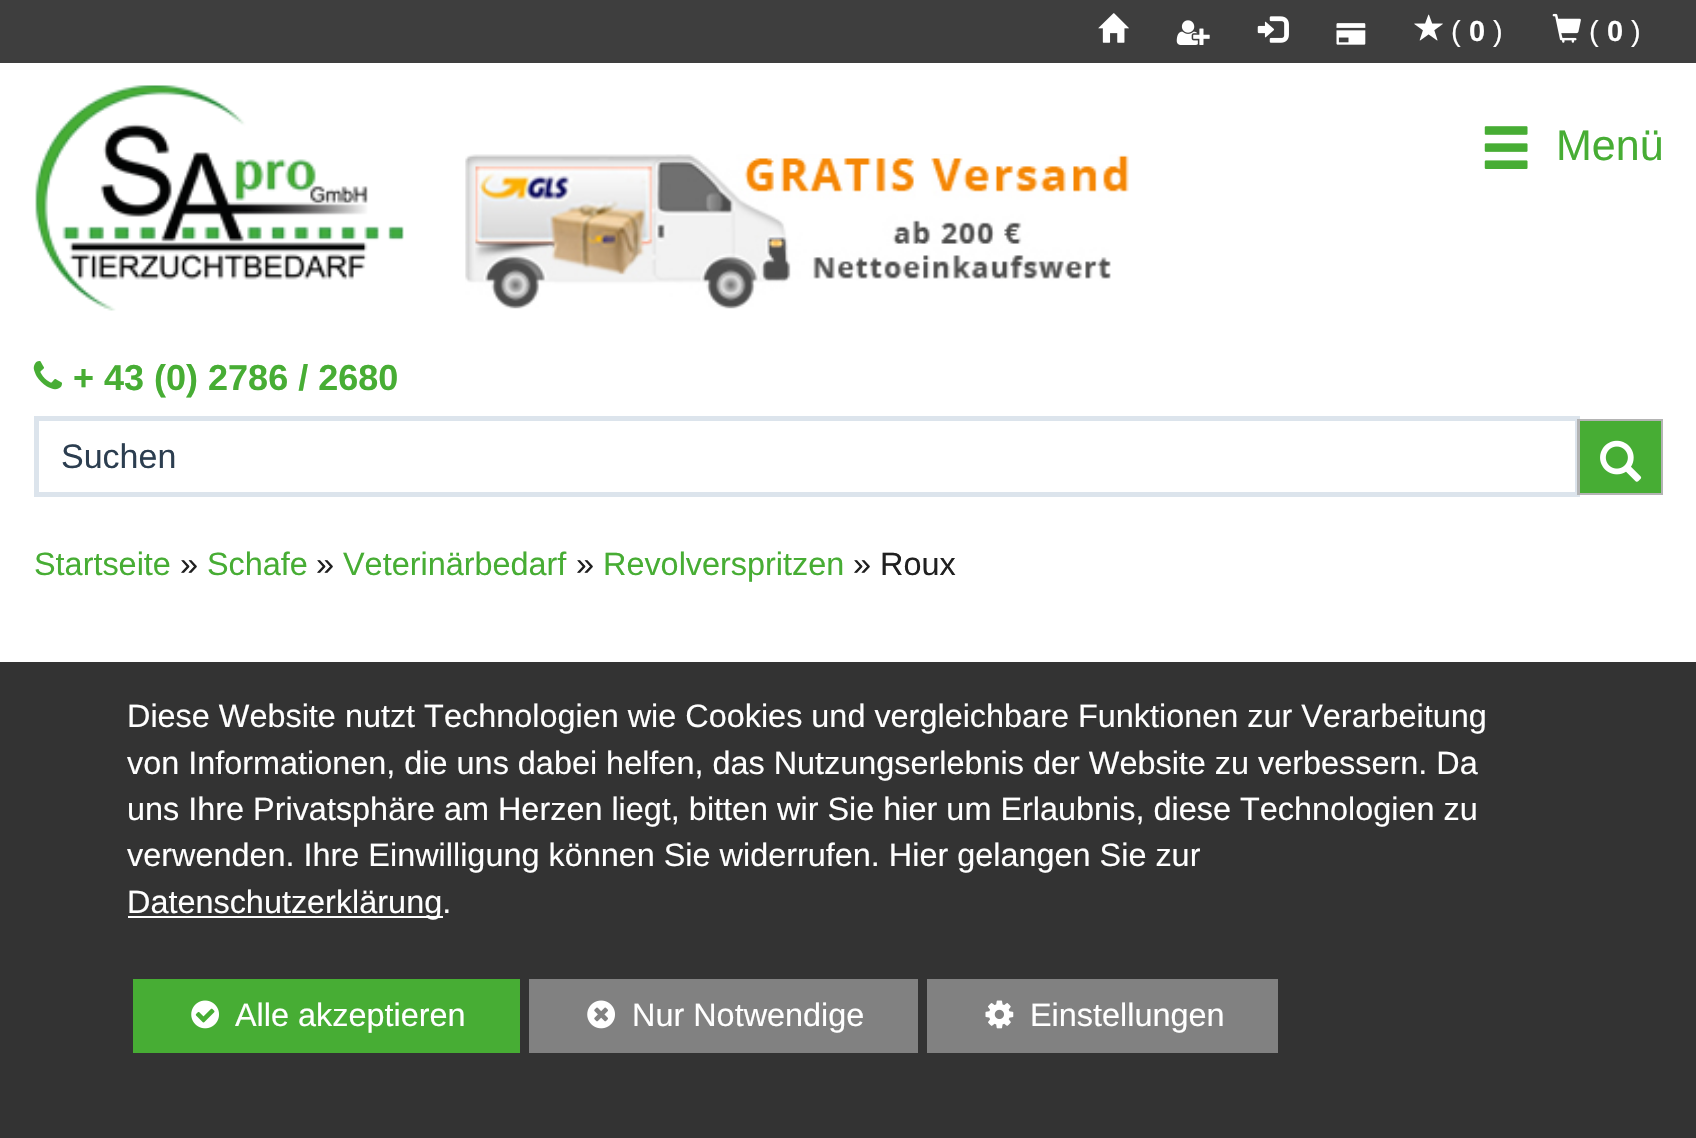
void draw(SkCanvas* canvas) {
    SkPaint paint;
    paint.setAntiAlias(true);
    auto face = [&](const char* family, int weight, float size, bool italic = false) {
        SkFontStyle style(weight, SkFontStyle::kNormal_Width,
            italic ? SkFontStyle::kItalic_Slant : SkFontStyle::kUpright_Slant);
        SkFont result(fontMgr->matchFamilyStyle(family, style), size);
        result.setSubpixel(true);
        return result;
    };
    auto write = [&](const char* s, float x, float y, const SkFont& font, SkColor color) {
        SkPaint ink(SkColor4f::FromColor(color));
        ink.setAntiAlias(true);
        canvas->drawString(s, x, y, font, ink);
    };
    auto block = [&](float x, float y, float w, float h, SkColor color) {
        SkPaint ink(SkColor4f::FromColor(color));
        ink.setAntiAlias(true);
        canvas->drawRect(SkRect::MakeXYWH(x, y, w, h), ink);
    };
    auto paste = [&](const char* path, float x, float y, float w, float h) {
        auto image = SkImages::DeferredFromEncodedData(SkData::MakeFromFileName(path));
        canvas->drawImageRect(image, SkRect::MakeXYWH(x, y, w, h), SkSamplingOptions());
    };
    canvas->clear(SK_ColorWHITE);
    block(0, 0, 1696, 63, SkColorSetRGB(62, 62, 62));
    paste("pic1.png", 1098, 13, 31, 30);
    paste("pic2.png", 1176, 20, 34, 25);
    paste("pic3.png", 1257, 16, 32, 27);
    paste("pic4.png", 1336, 23, 30, 22);
    paste("pic5.png", 1414, 14, 29, 27);
    auto kFont1 = face("Liberation Sans", 400, 29);
    write("(", 1451, 41, kFont1, SK_ColorWHITE);
    auto kFont2 = face("Liberation Sans", 700, 29);
    write("0", 1469, 41, kFont2, SK_ColorWHITE);
    write(")", 1493, 41, kFont1, SK_ColorWHITE);
    paste("pic6.png", 1552, 13, 29, 30);
    write("(", 1589, 41, kFont1, SK_ColorWHITE);
    write("0", 1607, 41, kFont2, SK_ColorWHITE);
    write(")", 1631, 41, kFont1, SK_ColorWHITE);
    paste("pic7.png", 35, 85, 369, 226);
    paste("pic8.png", 1484, 126, 44, 43);
    auto kFont3 = face("Liberation Sans", 400, 43);
    write("Menü", 1556, 160, kFont3, SkColorSetRGB(71, 173, 52));
    paste("pic9.png", 465, 154, 664, 155);
    paste("pic10.png", 33, 361, 29, 29);
    auto kFont4 = face("Liberation Sans", 700, 36);
    write("+ 43 (0) 2786 / 2680", 73, 390, kFont4, SkColorSetRGB(71, 173, 52));
    paint.setStyle(SkPaint::kStroke_Style);
    paint.setStrokeWidth(5);
    paint.setColor(SkColorSetRGB(220, 228, 236));
    canvas->drawRect(SkRect::MakeXYWH(36.5f, 418.5f, 1541, 76), paint);
    auto kFont5 = face("Liberation Sans", 400, 34);
    write("Suchen", 61, 468, kFont5, SkColorSetRGB(44, 62, 80));
    block(1577, 419, 86, 76, SkColorSetRGB(180, 180, 180));
    block(1580, 421, 81, 72, SkColorSetRGB(71, 173, 52));
    paste("pic11.png", 1600, 440, 42, 42);
    auto kFont6 = face("Liberation Sans", 400, 32.4f);
    write("Startseite", 34, 575, kFont6, SkColorSetRGB(71, 173, 52));
    write("»", 180, 575, kFont6, SkColorSetRGB(32, 32, 32));
    write("Schafe", 207, 575, kFont6, SkColorSetRGB(71, 173, 52));
    write("»", 316, 575, kFont6, SkColorSetRGB(32, 32, 32));
    write("Veterinärbedarf", 343, 575, kFont6, SkColorSetRGB(71, 173, 52));
    write("»", 576, 575, kFont6, SkColorSetRGB(32, 32, 32));
    write("Revolverspritzen", 603, 575, kFont6, SkColorSetRGB(71, 173, 52));
    write("» Roux", 853, 575, kFont6, SkColorSetRGB(32, 32, 32));
    block(0, 662, 1696, 476, SkColorSetRGB(51, 51, 51));
    write("Diese Website nutzt Technologien wie Cookies und vergleichbare Funktionen zur Verarbeitung", 127, 727, kFont6, SK_ColorWHITE);
    write("von Informationen, die uns dabei helfen, das Nutzungserlebnis der Website zu verbessern. Da", 127, 774, kFont6, SK_ColorWHITE);
    write("uns Ihre Privatsphäre am Herzen liegt, bitten wir Sie hier um Erlaubnis, diese Technologien zu", 127, 820, kFont6, SK_ColorWHITE);
    write("verwenden. Ihre Einwilligung können Sie widerrufen. Hier gelangen Sie zur", 127, 866, kFont6, SK_ColorWHITE);
    block(128, 916, 315, 2, SK_ColorWHITE);
    write("Datenschutzerklärung.", 127, 913, kFont6, SK_ColorWHITE);
    block(133, 979, 387, 74, SkColorSetRGB(71, 173, 52));
    paste("pic12.png", 191, 1000, 28, 29);
    write("Alle akzeptieren", 235, 1026, kFont6, SK_ColorWHITE);
    block(529, 979, 389, 74, SkColorSetRGB(129, 129, 129));
    paste("pic13.png", 587, 1000, 28, 29);
    write("Nur Notwendige", 632, 1026, kFont6, SK_ColorWHITE);
    block(927, 979, 351, 74, SkColorSetRGB(129, 129, 129));
    paste("pic14.png", 985, 1000, 29, 29);
    write("Einstellungen", 1030, 1026, kFont6, SK_ColorWHITE);
}
